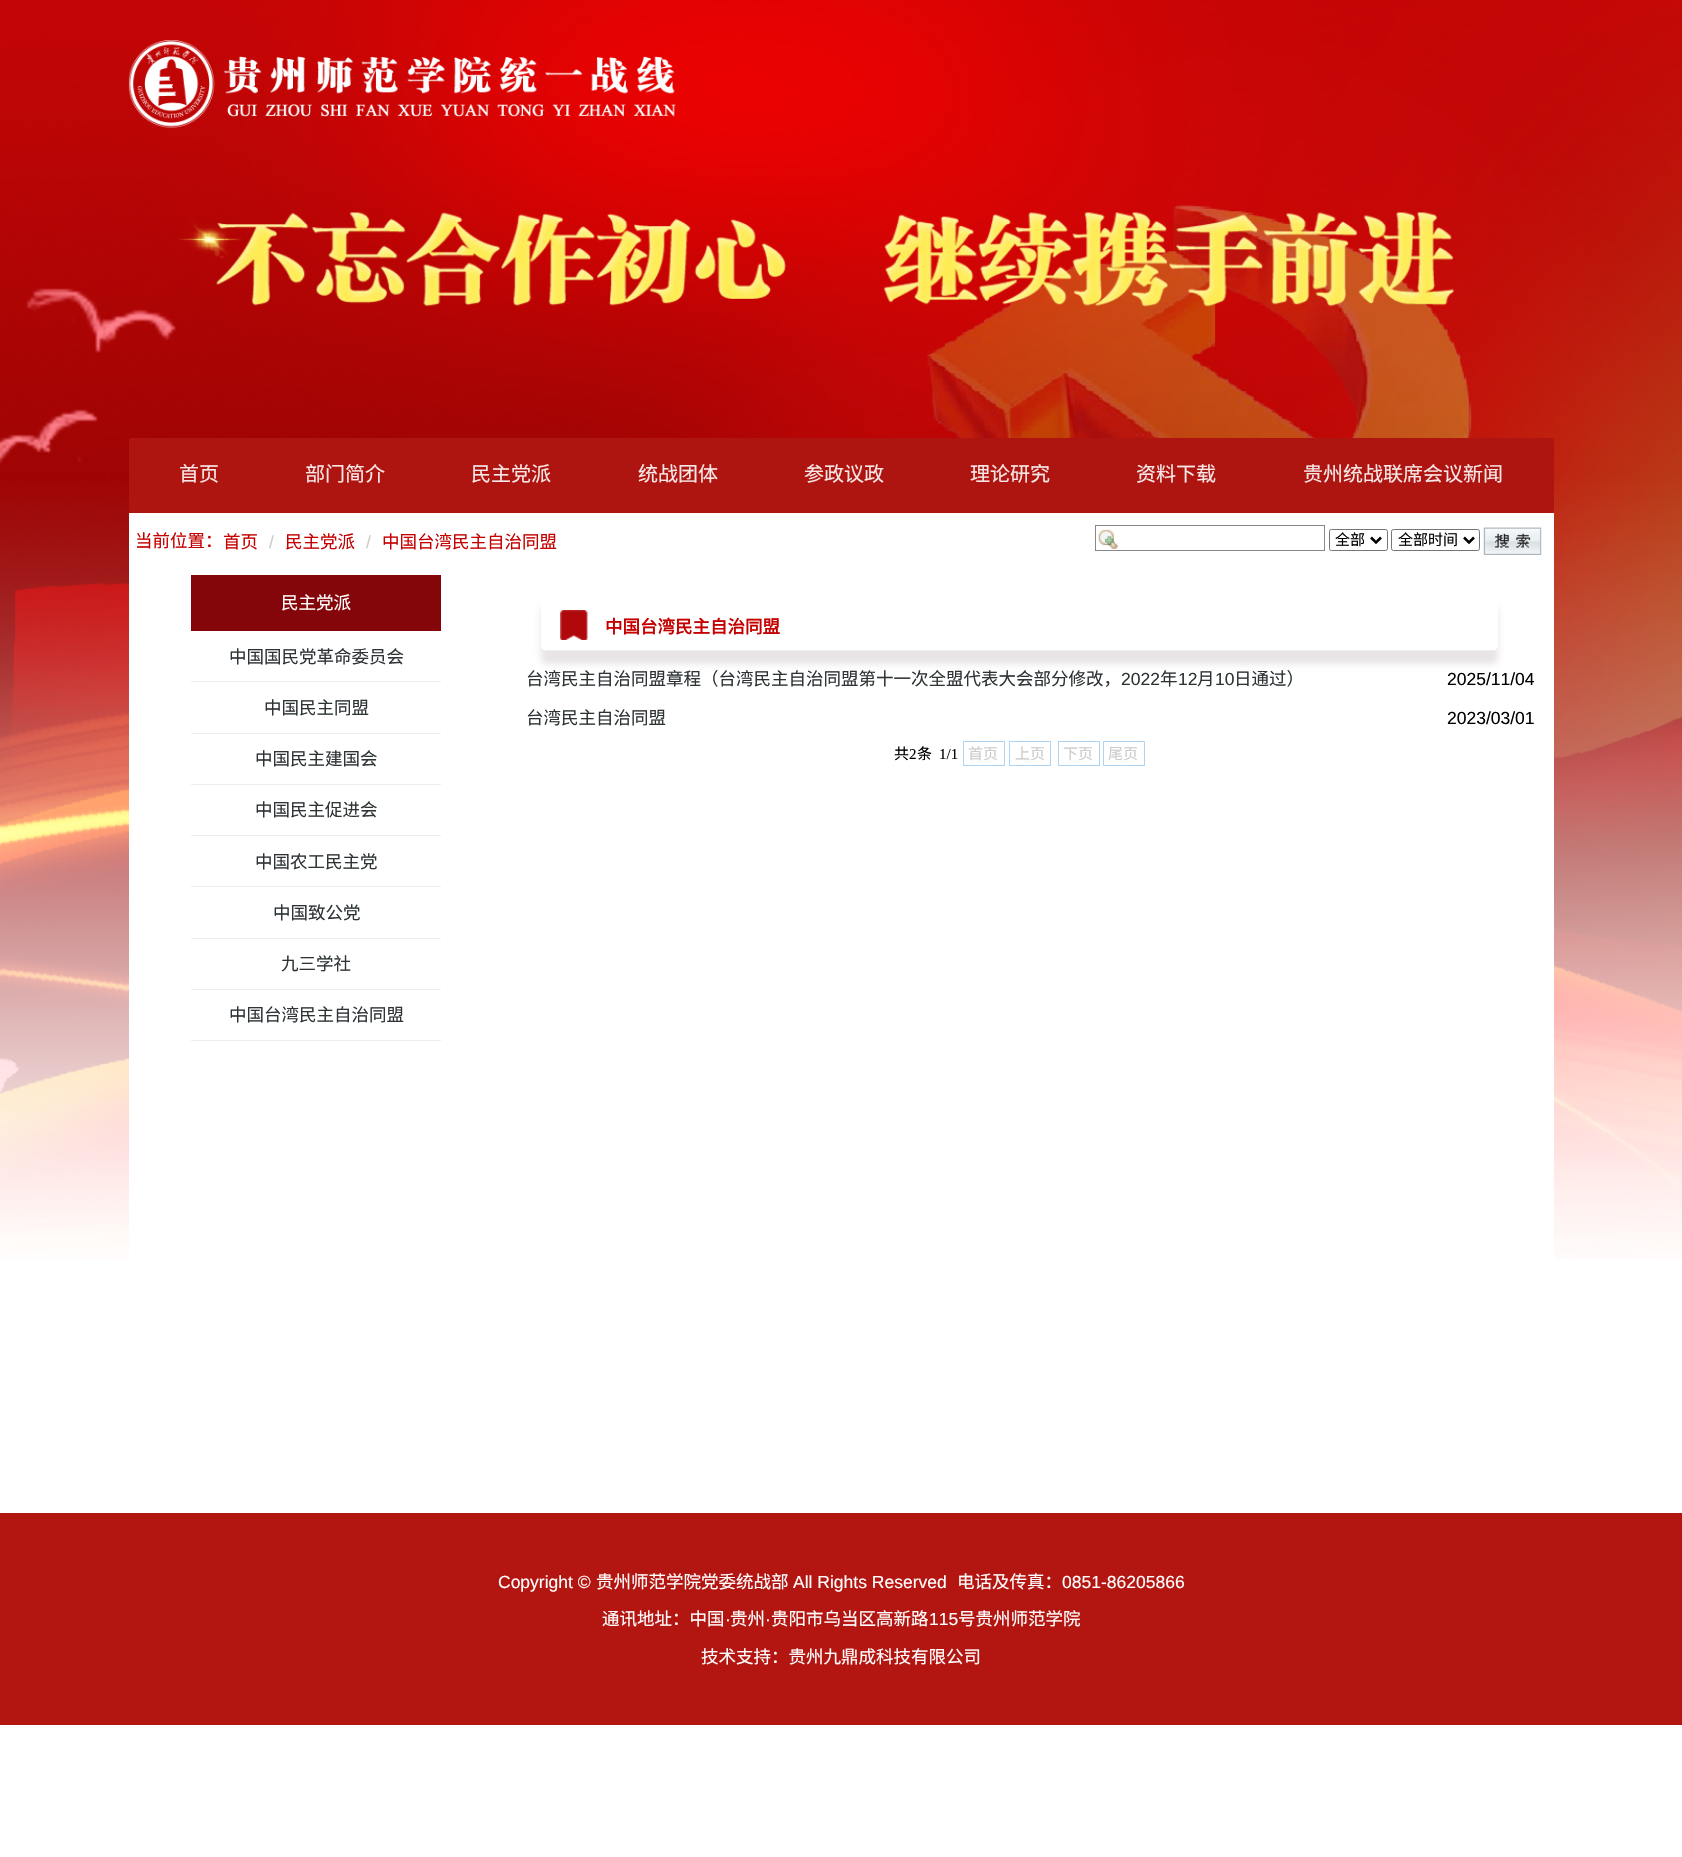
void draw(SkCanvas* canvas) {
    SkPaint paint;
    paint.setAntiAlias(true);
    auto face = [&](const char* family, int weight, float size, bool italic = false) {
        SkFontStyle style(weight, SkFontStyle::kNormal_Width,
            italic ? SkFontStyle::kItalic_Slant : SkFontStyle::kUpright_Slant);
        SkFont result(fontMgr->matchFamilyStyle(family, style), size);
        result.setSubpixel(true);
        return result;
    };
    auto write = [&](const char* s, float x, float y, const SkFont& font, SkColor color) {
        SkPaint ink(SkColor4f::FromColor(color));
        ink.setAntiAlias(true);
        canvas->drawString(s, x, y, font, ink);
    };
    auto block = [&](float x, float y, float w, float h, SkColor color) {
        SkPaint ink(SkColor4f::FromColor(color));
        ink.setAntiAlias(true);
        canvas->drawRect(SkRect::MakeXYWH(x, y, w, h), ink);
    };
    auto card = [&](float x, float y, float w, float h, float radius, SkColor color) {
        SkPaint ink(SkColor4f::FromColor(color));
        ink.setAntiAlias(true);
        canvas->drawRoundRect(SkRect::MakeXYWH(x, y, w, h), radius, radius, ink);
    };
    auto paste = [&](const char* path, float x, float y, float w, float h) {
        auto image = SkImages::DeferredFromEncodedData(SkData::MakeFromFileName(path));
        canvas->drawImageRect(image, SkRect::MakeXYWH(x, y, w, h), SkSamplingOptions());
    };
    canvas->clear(SK_ColorWHITE);
    paste("pic1.png", 0, 0, 1682, 1259);
    paste("pic2.png", 128, 40, 548, 88);
    paste("pic3.png", 216, 212, 1238, 95);
    card(129, 438, 1425, 75, 2.5f, SkColorSetRGB(175, 21, 16));
    auto kFont1 = face("Noto Sans CJK SC", 400, 20);
    write("首页", 179, 481, kFont1, SkColorSetRGB(247, 232, 231));
    write("部门简介", 305, 481, kFont1, SkColorSetRGB(247, 232, 231));
    write("民主党派", 471, 481, kFont1, SkColorSetRGB(247, 232, 231));
    write("统战团体", 638, 481, kFont1, SkColorSetRGB(247, 232, 231));
    write("参政议政", 804, 481, kFont1, SkColorSetRGB(247, 232, 231));
    write("理论研究", 970, 481, kFont1, SkColorSetRGB(247, 232, 231));
    write("资料下载", 1136, 481, kFont1, SkColorSetRGB(247, 232, 231));
    write("贵州统战联席会议新闻", 1303, 481, kFont1, SkColorSetRGB(247, 232, 231));
    block(129, 513, 1425, 746, SK_ColorWHITE);
    auto kFont2 = face("Noto Sans CJK SC", 400, 17.5f);
    write("当前位置：", 135, 547, kFont2, SkColorSetRGB(197, 0, 0));
    write("首页", 223, 548, kFont2, SkColorSetRGB(197, 0, 0));
    auto kFont3 = face("Liberation Sans", 400, 17.5f);
    write("/", 269, 548, kFont3, SkColorSetRGB(204, 204, 204));
    write("民主党派", 285, 548, kFont2, SkColorSetRGB(197, 0, 0));
    write("/", 366, 548, kFont3, SkColorSetRGB(204, 204, 204));
    write("中国台湾民主自治同盟", 382, 548, kFont2, SkColorSetRGB(197, 0, 0));
    paste("pic4.png", 1098, 529, 20, 20);
    paint.setStyle(SkPaint::kStroke_Style);
    paint.setStrokeWidth(1);
    paint.setColor(SkColorSetRGB(135, 135, 135));
    canvas->drawRect(SkRect::MakeXYWH(1095.5f, 525.5f, 229, 25), paint);
    paint.setColor(SkColorSetRGB(118, 118, 118));
    canvas->drawRoundRect(SkRect::MakeXYWH(1329.5f, 529.5f, 58, 21), 2, 2, paint);
    paint.setStrokeWidth(2.5f);
    paint.setColor(SK_ColorBLACK);
    canvas->drawPath(SkPathBuilder().moveTo(1371, 537.5f).lineTo(1376, 542.5f).lineTo(1381, 537.5f).detach(), paint);
    auto kFont4 = face("Noto Sans CJK SC", 400, 15);
    write("全部", 1335, 545, kFont4, SK_ColorBLACK);
    paint.setStrokeWidth(1);
    paint.setColor(SkColorSetRGB(118, 118, 118));
    canvas->drawRoundRect(SkRect::MakeXYWH(1391.5f, 529.5f, 88, 21), 2, 2, paint);
    paint.setStrokeWidth(2.5f);
    paint.setColor(SK_ColorBLACK);
    canvas->drawPath(SkPathBuilder().moveTo(1464, 537.5f).lineTo(1469, 542.5f).lineTo(1474, 537.5f).detach(), paint);
    write("全部时间", 1398, 545, kFont4, SK_ColorBLACK);
    paste("pic5.png", 1483, 527, 59, 28);
    block(191, 575, 250, 56, SkColorSetRGB(132, 6, 10));
    write("民主党派", 281, 609, kFont2, SK_ColorWHITE);
    block(191, 681, 250, 1, SkColorSetRGB(238, 238, 238));
    write("中国国民党革命委员会", 229, 663, kFont2, SkColorSetRGB(46, 52, 54));
    block(191, 733, 250, 1, SkColorSetRGB(238, 238, 238));
    write("中国民主同盟", 264, 714, kFont2, SkColorSetRGB(46, 52, 54));
    block(191, 784, 250, 1, SkColorSetRGB(238, 238, 238));
    write("中国民主建国会", 255, 765, kFont2, SkColorSetRGB(46, 52, 54));
    block(191, 835, 250, 1, SkColorSetRGB(238, 238, 238));
    write("中国民主促进会", 255, 816, kFont2, SkColorSetRGB(46, 52, 54));
    block(191, 886, 250, 1, SkColorSetRGB(238, 238, 238));
    write("中国农工民主党", 255, 868, kFont2, SkColorSetRGB(46, 52, 54));
    block(191, 938, 250, 1, SkColorSetRGB(238, 238, 238));
    write("中国致公党", 273, 919, kFont2, SkColorSetRGB(46, 52, 54));
    block(191, 989, 250, 1, SkColorSetRGB(238, 238, 238));
    write("九三学社", 281, 970, kFont2, SkColorSetRGB(46, 52, 54));
    block(191, 1040, 250, 1, SkColorSetRGB(238, 238, 238));
    write("中国台湾民主自治同盟", 229, 1021, kFont2, SkColorSetRGB(46, 52, 54));
    canvas->save();
    canvas->clipPath(SkPathBuilder(SkPathFillType::kEvenOdd).moveTo(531, 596).lineTo(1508, 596).lineTo(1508, 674).lineTo(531, 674).close().moveTo(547, 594).lineTo(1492, 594).cubicTo(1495.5f, 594, 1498, 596.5f, 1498, 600).lineTo(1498, 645).cubicTo(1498, 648.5f, 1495.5f, 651, 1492, 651).lineTo(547, 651).cubicTo(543.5f, 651, 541, 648.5f, 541, 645).lineTo(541, 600).cubicTo(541, 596.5f, 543.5f, 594, 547, 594).close().detach(), true);
    paint.setStyle(SkPaint::kFill_Style);
    paint.setColor(SkColorSetRGB(233, 229, 230));
    paint.setMaskFilter(SkMaskFilter::MakeBlur(kNormal_SkBlurStyle, 3));
    canvas->drawRoundRect(SkRect::MakeXYWH(541, 606, 957, 58), 6, 6, paint);
    paint.setMaskFilter(nullptr);
    canvas->restore();
    block(545, 650, 950, 1, SkColorSetRGB(238, 238, 238));
    paste("pic6.png", 560, 610, 28, 30);
    auto kFont5 = face("Noto Sans CJK SC", 700, 17.5f);
    write("中国台湾民主自治同盟", 605, 633, kFont5, SkColorSetRGB(197, 0, 0));
    write("台湾民主自治同盟章程（台湾民主自治同盟第十一次全盟代表大会部分修改，", 526, 685, kFont2, SkColorSetRGB(46, 52, 54));
    write("2022", 1121, 685, kFont3, SkColorSetRGB(46, 52, 54));
    write("年", 1160, 685, kFont2, SkColorSetRGB(46, 52, 54));
    write("12", 1178, 685, kFont3, SkColorSetRGB(46, 52, 54));
    write("月", 1197, 685, kFont2, SkColorSetRGB(46, 52, 54));
    write("10", 1215, 685, kFont3, SkColorSetRGB(46, 52, 54));
    write("日通过）", 1234, 685, kFont2, SkColorSetRGB(46, 52, 54));
    write("2025/11/04", 1447, 685, kFont3, SK_ColorBLACK);
    write("台湾民主自治同盟", 526, 724, kFont2, SkColorSetRGB(46, 52, 54));
    write("2023/03/01", 1447, 724, kFont3, SK_ColorBLACK);
    write("共", 894, 759, kFont4, SK_ColorBLACK);
    auto kFont6 = face("Liberation Serif", 400, 15);
    write("2", 909, 759, kFont6, SK_ColorBLACK);
    write("条", 917, 759, kFont4, SK_ColorBLACK);
    write("1/1", 939, 759, kFont6, SK_ColorBLACK);
    paint.setStyle(SkPaint::kStroke_Style);
    paint.setStrokeWidth(1);
    paint.setColor(SkColorSetRGB(175, 213, 245));
    canvas->drawRect(SkRect::MakeXYWH(963.5f, 741.5f, 41, 24), paint);
    write("首页", 968, 759, kFont4, SkColorSetRGB(204, 204, 204));
    canvas->drawRect(SkRect::MakeXYWH(1009.5f, 741.5f, 41, 24), paint);
    write("上页", 1015, 759, kFont4, SkColorSetRGB(204, 204, 204));
    canvas->drawRect(SkRect::MakeXYWH(1058.5f, 741.5f, 41, 24), paint);
    write("下页", 1063, 759, kFont4, SkColorSetRGB(204, 204, 204));
    canvas->drawRect(SkRect::MakeXYWH(1103.5f, 741.5f, 41, 24), paint);
    write("尾页", 1108, 759, kFont4, SkColorSetRGB(204, 204, 204));
    block(0, 1513, 1682, 212, SkColorSetRGB(179, 21, 17));
    write("Copyright ©", 498, 1588, kFont3, SK_ColorWHITE);
    write("贵州师范学院党委统战部", 596, 1588, kFont2, SK_ColorWHITE);
    write("All Rights Reserved", 793, 1588, kFont3, SK_ColorWHITE);
    write("电话及传真：", 957, 1588, kFont2, SK_ColorWHITE);
    write("0851-86205866", 1062, 1588, kFont3, SK_ColorWHITE);
    write("通讯地址：中国", 602, 1625, kFont2, SK_ColorWHITE);
    write("·", 725, 1625, kFont3, SK_ColorWHITE);
    write("贵州", 730, 1625, kFont2, SK_ColorWHITE);
    write("·", 765, 1625, kFont3, SK_ColorWHITE);
    write("贵阳市乌当区高新路", 771, 1625, kFont2, SK_ColorWHITE);
    write("115", 929, 1625, kFont3, SK_ColorWHITE);
    write("号贵州师范学院", 958, 1625, kFont2, SK_ColorWHITE);
    write("技术支持：贵州九鼎成科技有限公司", 701, 1663, kFont2, SK_ColorWHITE);
}
